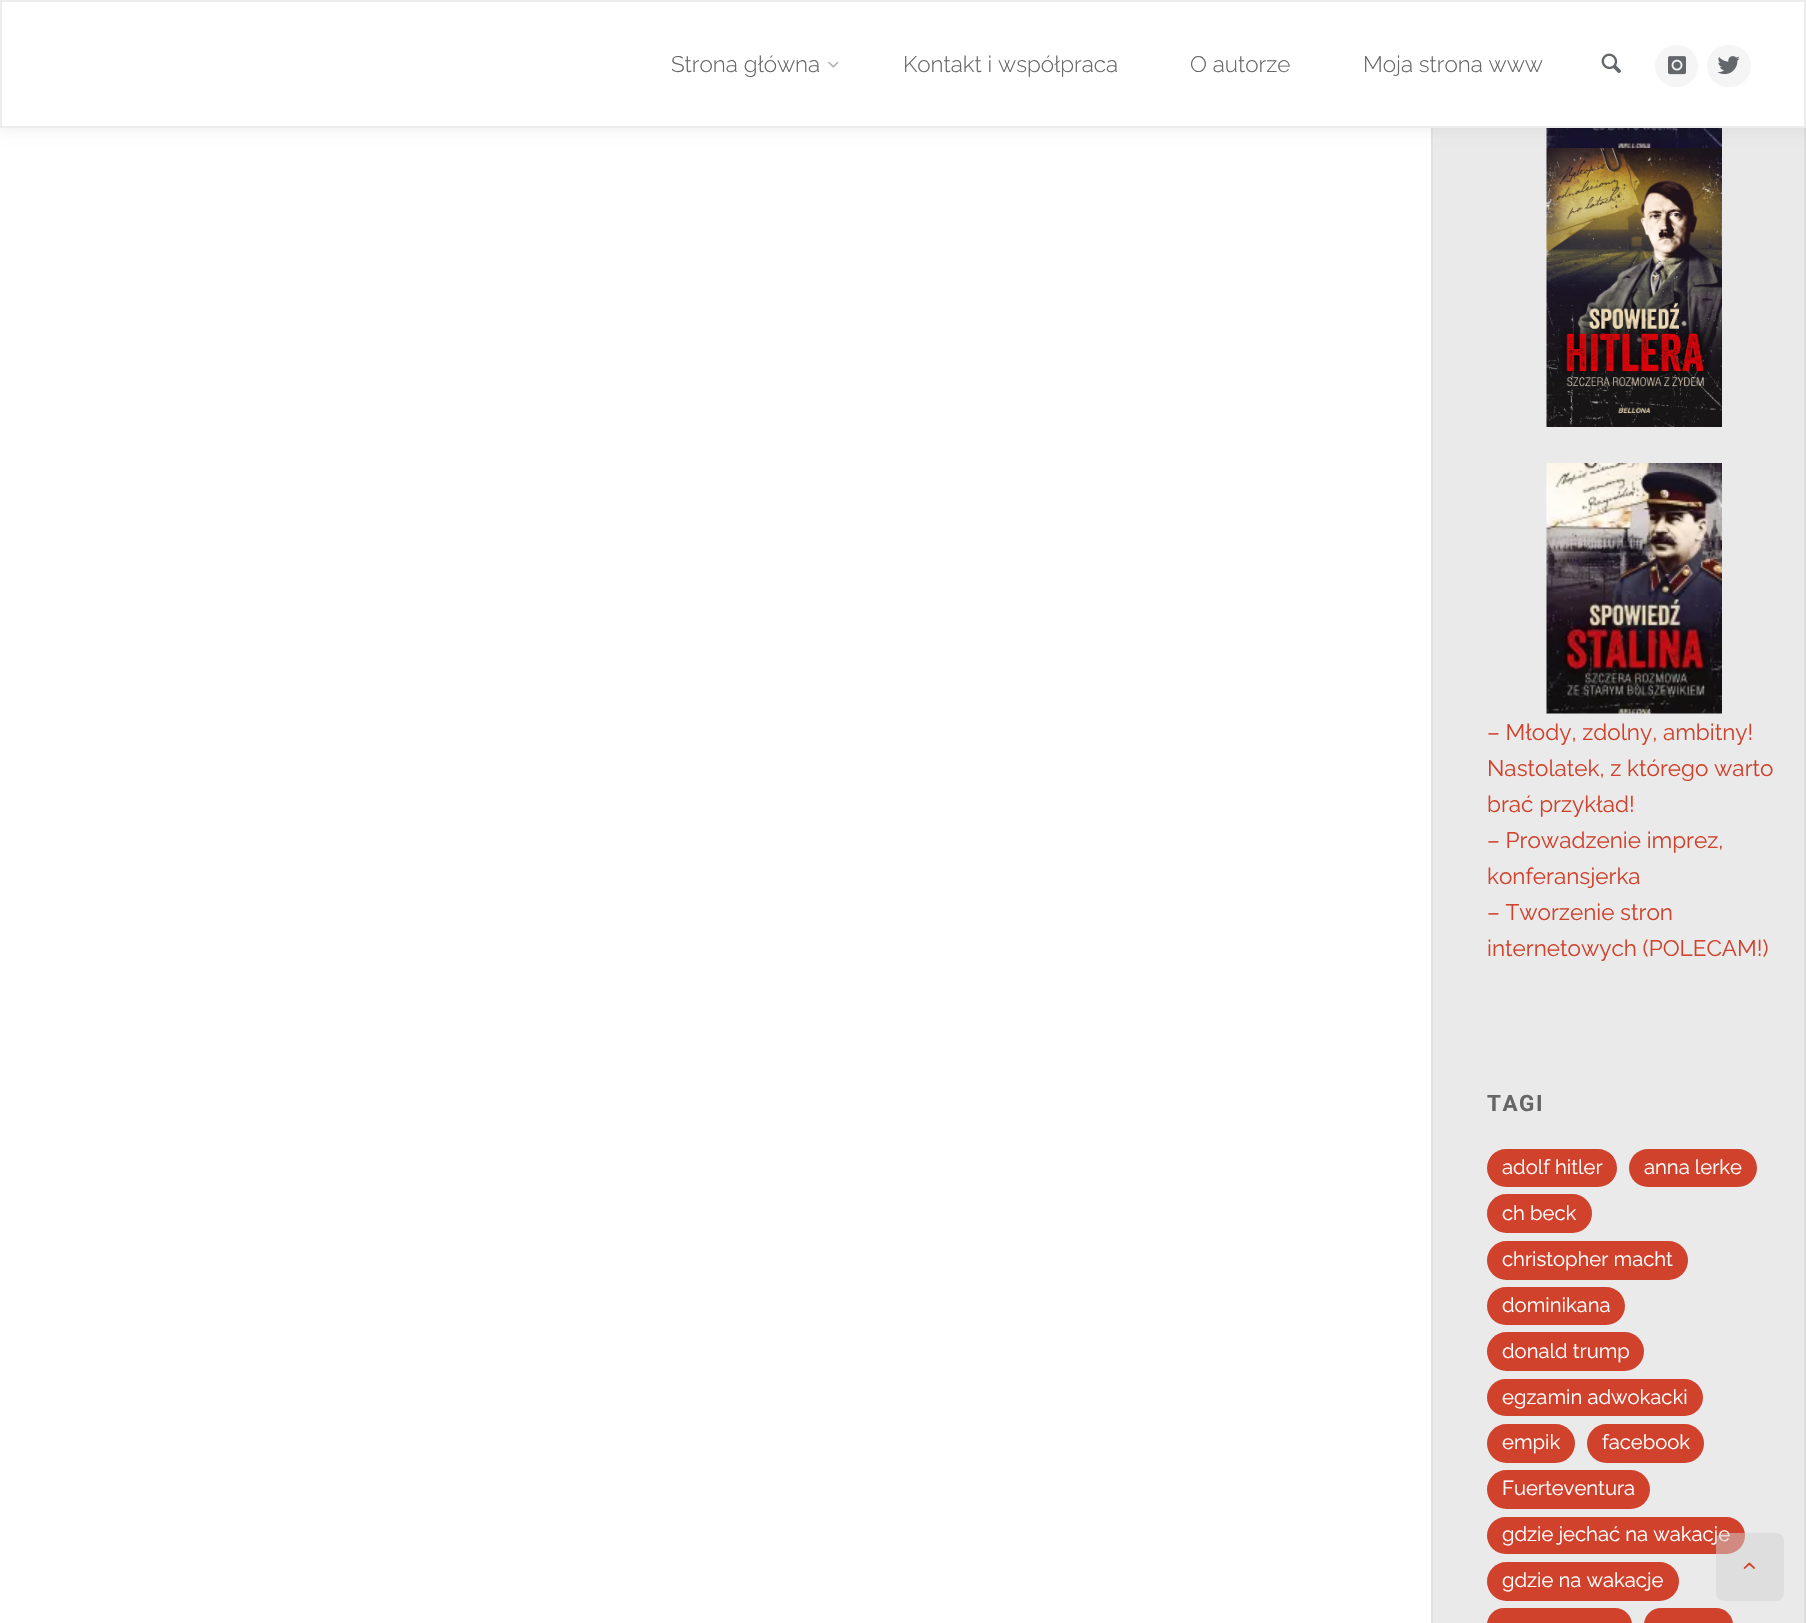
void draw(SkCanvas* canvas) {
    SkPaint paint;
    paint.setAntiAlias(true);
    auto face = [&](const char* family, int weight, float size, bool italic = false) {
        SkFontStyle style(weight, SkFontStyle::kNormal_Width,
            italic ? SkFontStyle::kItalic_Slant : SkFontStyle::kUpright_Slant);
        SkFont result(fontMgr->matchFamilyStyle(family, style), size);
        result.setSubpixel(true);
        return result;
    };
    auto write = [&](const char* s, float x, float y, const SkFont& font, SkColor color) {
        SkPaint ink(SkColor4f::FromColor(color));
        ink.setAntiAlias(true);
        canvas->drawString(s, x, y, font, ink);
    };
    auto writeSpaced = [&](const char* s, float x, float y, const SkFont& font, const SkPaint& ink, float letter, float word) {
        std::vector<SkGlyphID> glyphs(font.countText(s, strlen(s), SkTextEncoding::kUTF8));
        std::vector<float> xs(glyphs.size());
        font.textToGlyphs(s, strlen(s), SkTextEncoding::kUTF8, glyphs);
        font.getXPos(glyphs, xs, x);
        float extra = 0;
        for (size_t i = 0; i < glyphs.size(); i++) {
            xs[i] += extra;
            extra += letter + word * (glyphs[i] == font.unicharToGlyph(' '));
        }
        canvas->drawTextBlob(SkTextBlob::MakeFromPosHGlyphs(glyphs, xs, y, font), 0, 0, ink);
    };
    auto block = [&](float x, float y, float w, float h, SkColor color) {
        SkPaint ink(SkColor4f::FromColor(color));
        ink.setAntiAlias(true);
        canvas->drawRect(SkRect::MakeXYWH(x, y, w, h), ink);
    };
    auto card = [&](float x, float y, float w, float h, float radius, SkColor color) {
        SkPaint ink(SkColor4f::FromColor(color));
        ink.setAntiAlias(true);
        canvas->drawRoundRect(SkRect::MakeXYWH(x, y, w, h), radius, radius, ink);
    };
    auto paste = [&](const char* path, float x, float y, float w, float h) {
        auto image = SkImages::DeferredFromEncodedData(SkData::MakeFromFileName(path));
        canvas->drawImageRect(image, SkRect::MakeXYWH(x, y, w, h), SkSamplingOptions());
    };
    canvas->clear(SkColorSetRGB(234, 234, 234));
    block(0, 128, 1431, 1495, SK_ColorWHITE);
    paint.setStyle(SkPaint::kStroke_Style);
    paint.setStrokeWidth(1.5f);
    paint.setColor(SkColorSetRGB(218, 218, 218));
    canvas->drawPath(SkPathBuilder().moveTo(1433.5f, -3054.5f).cubicTo(1435, -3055.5f, 1436.5f, -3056, 1438.5f, -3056).lineTo(1798.5f, -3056).cubicTo(1800.5f, -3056, 1802, -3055.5f, 1803.5f, -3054.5f).cubicTo(1804.5f, -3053, 1805, -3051.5f, 1805, -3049.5f).lineTo(1805, 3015).cubicTo(1805, 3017, 1804.5f, 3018.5f, 1803.5f, 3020).cubicTo(1802, 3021, 1800.5f, 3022, 1798.5f, 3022).lineTo(1438.5f, 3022).cubicTo(1436.5f, 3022, 1435, 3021, 1433.5f, 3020).detach(), paint);
    paint.setColor(SkColorSetRGB(222, 222, 222));
    canvas->drawPath(SkPathBuilder().moveTo(1433.5f, 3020).cubicTo(1432.5f, 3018.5f, 1432, 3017, 1432, 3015).lineTo(1432, -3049.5f).cubicTo(1432, -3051.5f, 1432.5f, -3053, 1433.5f, -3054.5f).detach(), paint);
    paste("pic5.png", 1546, 128, 176, 20);
    paste("pic6.png", 1546, 148, 176, 279);
    paint.setStyle(SkPaint::kFill_Style);
    paint.setColor(SkColorSetARGB(13, 0, 0, 0));
    paint.setMaskFilter(SkMaskFilter::MakeBlur(kNormal_SkBlurStyle, 5.5f));
    canvas->drawRect(SkRect::MakeXYWH(-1, -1, 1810, 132), paint);
    paint.setMaskFilter(nullptr);
    paint.setColor(SK_ColorWHITE);
    canvas->drawRect(SkRect::MakeXYWH(1, 1, 1804, 126), paint);
    paint.setStyle(SkPaint::kStroke_Style);
    paint.setStrokeWidth(2);
    paint.setColor(SkColorSetRGB(237, 237, 237));
    canvas->drawRect(SkRect::MakeXYWH(1, 1, 1804, 126), paint);
    auto kFont1 = face("Raleway", 300, 22.5f);
    write("Strona główna", 671, 72, kFont1, SkColorSetRGB(102, 102, 102));
    paste("pic1.png", 828, 61, 11, 7);
    write("Kontakt i współpraca", 903, 72, kFont1, SkColorSetRGB(102, 102, 102));
    write("O autorze", 1190, 72, kFont1, SkColorSetRGB(102, 102, 102));
    write("Moja strona www", 1363, 72, kFont1, SkColorSetRGB(102, 102, 102));
    paste("pic2.png", 1601, 53, 21, 21);
    card(1655, 45, 43, 42, 21, SkColorSetRGB(245, 245, 245));
    paste("pic3.png", 1668, 56, 18, 19);
    card(1707, 45, 44, 42, 21, SkColorSetRGB(245, 245, 245));
    paste("pic4.png", 1717, 56, 23, 19);
    paste("pic7.png", 1546, 463, 176, 251);
    auto kFont2 = face("Raleway", 400, 22.5f);
    write("– Młody, zdolny, ambitny!", 1487, 740, kFont2, SkColorSetRGB(208, 66, 44));
    write("Nastolatek, z którego warto", 1487, 776, kFont2, SkColorSetRGB(208, 66, 44));
    write("brać przykład!", 1487, 812, kFont2, SkColorSetRGB(208, 66, 44));
    write("– Prowadzenie imprez,", 1487, 848, kFont2, SkColorSetRGB(208, 66, 44));
    write("konferansjerka", 1487, 884, kFont2, SkColorSetRGB(208, 66, 44));
    write("– Tworzenie stron", 1487, 920, kFont2, SkColorSetRGB(208, 66, 44));
    write("internetowych (POLECAM!)", 1487, 956, kFont2, SkColorSetRGB(208, 66, 44));
    auto kFont3 = face("Roboto", 700, 22.5f);
    paint.setStyle(SkPaint::kFill_Style);
    paint.setColor(SkColorSetRGB(102, 102, 102));
    writeSpaced("TAGI", 1487, 1111, kFont3, paint, 1.5f, 0);
    card(1487, 1149, 130, 38, 19, SkColorSetRGB(208, 66, 44));
    auto kFont4 = face("Raleway", 400, 20.25f);
    write("adolf hitler", 1502, 1174, kFont4, SK_ColorWHITE);
    card(1629, 1149, 128, 38, 19, SkColorSetRGB(208, 66, 44));
    write("anna lerke", 1644, 1174, kFont4, SK_ColorWHITE);
    card(1487, 1194, 105, 39, 19.5f, SkColorSetRGB(208, 66, 44));
    write("ch beck", 1502, 1220, kFont4, SK_ColorWHITE);
    card(1487, 1241, 201, 39, 19.5f, SkColorSetRGB(208, 66, 44));
    write("christopher macht", 1502, 1266, kFont4, SK_ColorWHITE);
    card(1487, 1287, 138, 38, 19, SkColorSetRGB(208, 66, 44));
    write("dominikana", 1502, 1312, kFont4, SK_ColorWHITE);
    card(1487, 1332, 157, 39, 19.5f, SkColorSetRGB(208, 66, 44));
    write("donald trump", 1502, 1358, kFont4, SK_ColorWHITE);
    card(1487, 1379, 216, 37, 18.5f, SkColorSetRGB(208, 66, 44));
    write("egzamin adwokacki", 1502, 1404, kFont4, SK_ColorWHITE);
    card(1487, 1424, 88, 39, 19.5f, SkColorSetRGB(208, 66, 44));
    write("empik", 1502, 1449, kFont4, SK_ColorWHITE);
    card(1587, 1424, 117, 39, 19.5f, SkColorSetRGB(208, 66, 44));
    write("facebook", 1602, 1449, kFont4, SK_ColorWHITE);
    card(1487, 1470, 163, 39, 19.5f, SkColorSetRGB(208, 66, 44));
    write("Fuerteventura", 1502, 1495, kFont4, SK_ColorWHITE);
    card(1487, 1517, 258, 37, 18.5f, SkColorSetRGB(208, 66, 44));
    write("gdzie jechać na wakacje", 1502, 1541, kFont4, SK_ColorWHITE);
    card(1487, 1562, 192, 39, 19.5f, SkColorSetRGB(208, 66, 44));
    write("gdzie na wakacje", 1502, 1587, kFont4, SK_ColorWHITE);
    card(1487, 1608, 145, 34, 19, SkColorSetRGB(208, 66, 44));
    card(1644, 1608, 89, 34, 19, SkColorSetRGB(208, 66, 44));
    card(1716, 1533, 68, 68, 8, SkColorSetARGB(128, 209, 209, 209));
    paste("pic8.png", 1743, 1562, 12, 7);
}
